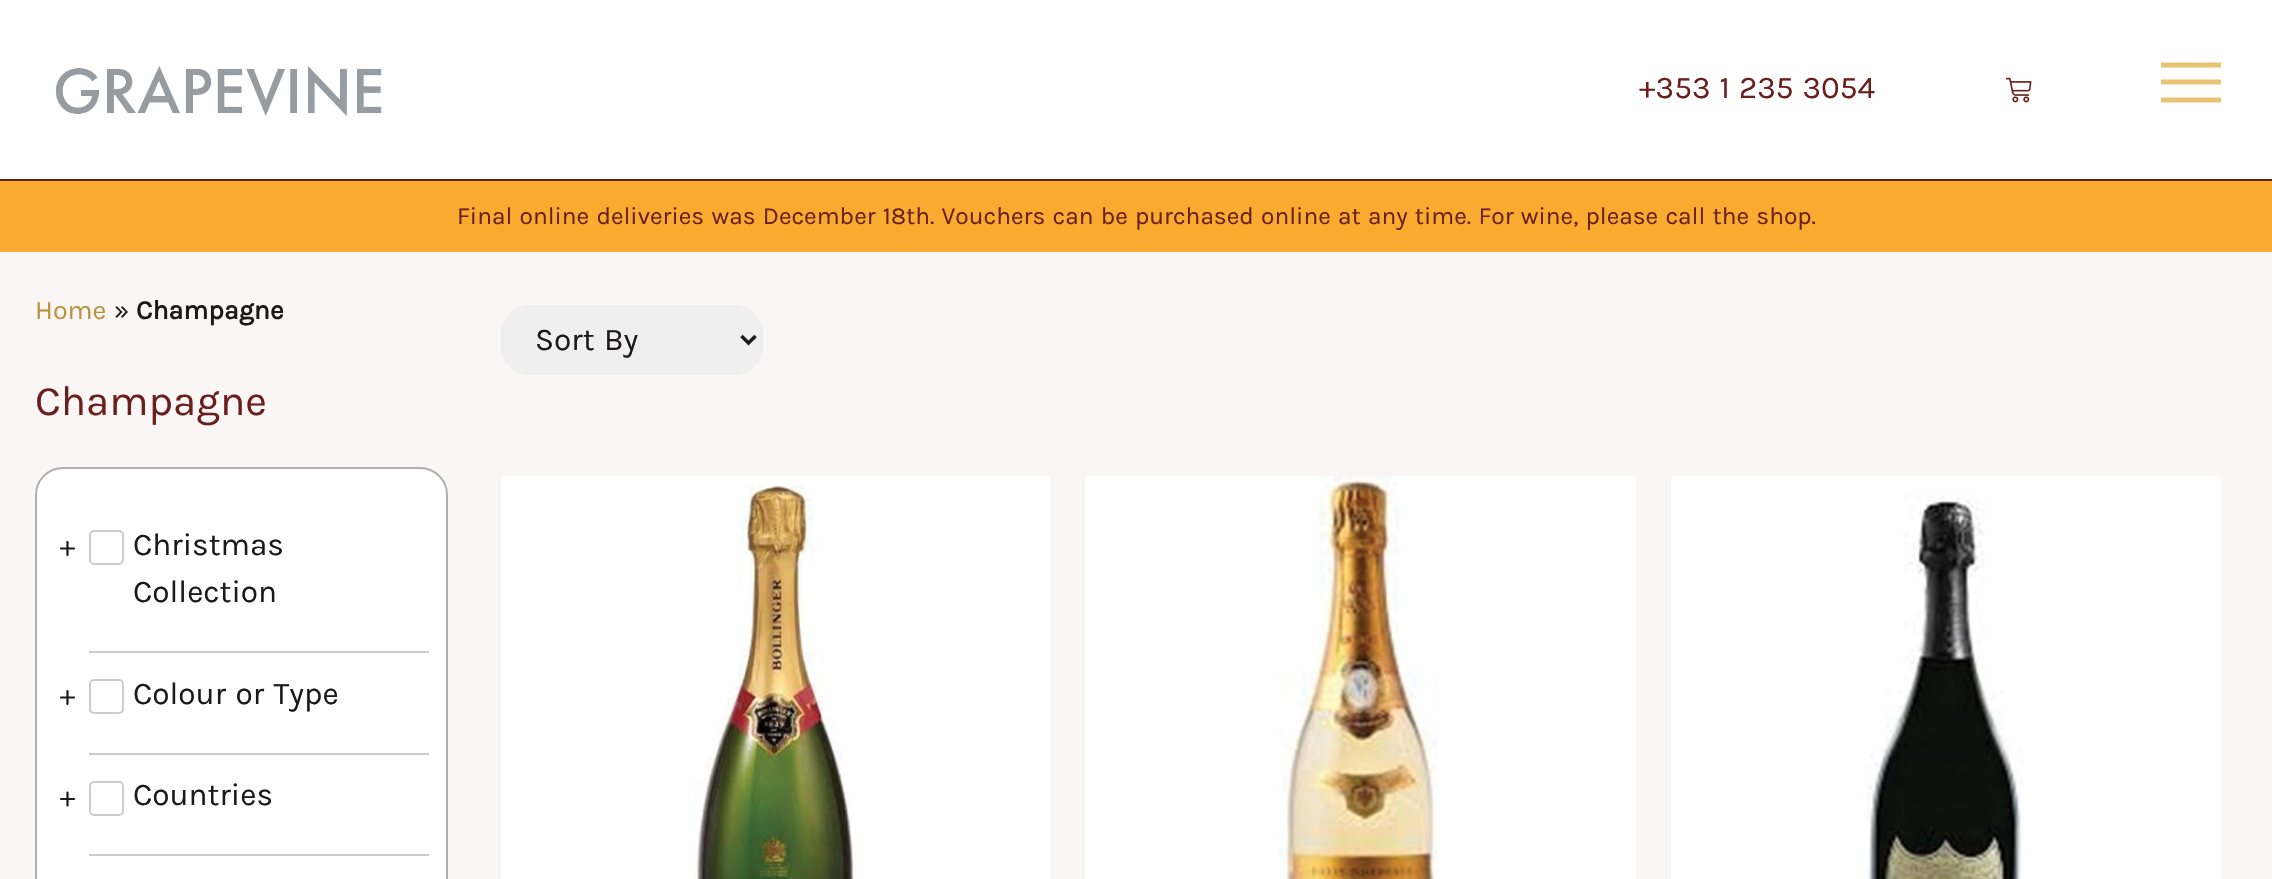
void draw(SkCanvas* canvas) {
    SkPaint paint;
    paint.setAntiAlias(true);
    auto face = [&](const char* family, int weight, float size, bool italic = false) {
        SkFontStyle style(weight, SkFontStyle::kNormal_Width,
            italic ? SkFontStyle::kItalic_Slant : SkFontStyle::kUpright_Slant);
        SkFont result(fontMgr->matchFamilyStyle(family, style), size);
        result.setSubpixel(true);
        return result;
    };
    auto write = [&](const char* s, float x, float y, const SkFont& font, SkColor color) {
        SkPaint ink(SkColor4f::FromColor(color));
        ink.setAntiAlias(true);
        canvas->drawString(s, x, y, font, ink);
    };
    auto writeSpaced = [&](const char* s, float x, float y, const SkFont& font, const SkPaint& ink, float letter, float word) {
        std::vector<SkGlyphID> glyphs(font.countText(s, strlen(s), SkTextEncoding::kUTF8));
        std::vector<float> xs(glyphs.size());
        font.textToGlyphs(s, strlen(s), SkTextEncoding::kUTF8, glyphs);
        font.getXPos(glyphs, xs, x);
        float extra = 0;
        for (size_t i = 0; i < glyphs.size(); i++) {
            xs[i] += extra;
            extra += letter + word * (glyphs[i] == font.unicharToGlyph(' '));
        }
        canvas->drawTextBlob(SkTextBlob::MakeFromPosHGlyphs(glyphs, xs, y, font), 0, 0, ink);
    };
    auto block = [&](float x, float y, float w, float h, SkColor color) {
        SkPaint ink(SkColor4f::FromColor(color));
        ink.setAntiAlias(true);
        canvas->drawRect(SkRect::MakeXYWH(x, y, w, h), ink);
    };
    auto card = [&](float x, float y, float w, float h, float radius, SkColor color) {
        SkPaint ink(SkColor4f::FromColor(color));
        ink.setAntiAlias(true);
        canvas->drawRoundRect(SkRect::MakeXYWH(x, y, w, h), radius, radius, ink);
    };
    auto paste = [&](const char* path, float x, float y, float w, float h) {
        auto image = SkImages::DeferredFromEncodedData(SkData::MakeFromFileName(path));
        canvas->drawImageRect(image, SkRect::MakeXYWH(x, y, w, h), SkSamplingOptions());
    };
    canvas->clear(SkColorSetRGB(249, 246, 245));
    block(0, 0, 2272, 179, SK_ColorWHITE);
    block(0, 179, 2272, 2, SkColorSetRGB(107, 31, 29));
    paste("pic1.png", 56, 66, 326, 50);
    auto kFont1 = face("Karla", 400, 31.5f);
    paint.setColor(SkColorSetRGB(107, 31, 29));
    writeSpaced("+353 1 235 3054", 1639, 98, kFont1, paint, 0, 1.5f);
    paste("pic2.png", 2006, 77, 26, 26);
    paint.setStyle(SkPaint::kStroke_Style);
    paint.setStrokeWidth(5.2f);
    paint.setColor(SkColorSetRGB(233, 196, 117));
    canvas->drawPath(SkPathBuilder().moveTo(2161, 65).lineTo(2221, 65).moveTo(2161, 82).lineTo(2221, 82).moveTo(2161, 100).lineTo(2221, 100).detach(), paint);
    block(0, 181, 2272, 71, SkColorSetRGB(248, 171, 47));
    auto kFont2 = face("Karla", 400, 24.5f);
    paint.setStyle(SkPaint::kFill_Style);
    paint.setColor(SkColorSetRGB(107, 31, 29));
    writeSpaced("Final online deliveries was December 18th. Vouchers can be purchased online at any time. For wine, please call the shop.", 457, 224, kFont2, paint, 0, 1.4f);
    auto kFont3 = face("Karla", 400, 26.75f);
    write("Home", 35, 319, kFont3, SkColorSetRGB(187, 146, 58));
    write("»", 114, 319, kFont3, SkColorSetRGB(27, 25, 25));
    auto kFont4 = face("Karla", 700, 26.75f);
    write("Champagne", 136, 319, kFont4, SkColorSetRGB(27, 25, 25));
    auto kFont5 = face("Karla", 400, 42);
    write("Champagne", 35, 415, kFont5, SkColorSetRGB(107, 31, 29));
    paint.setColor(SK_ColorWHITE);
    canvas->drawRoundRect(SkRect::MakeXYWH(36, 468, 411, 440), 27, 27, paint);
    paint.setStyle(SkPaint::kStroke_Style);
    paint.setStrokeWidth(2);
    paint.setColor(SkColorSetRGB(174, 174, 174));
    canvas->drawRoundRect(SkRect::MakeXYWH(36, 468, 411, 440), 27, 27, paint);
    paint.setStrokeWidth(2.2f);
    paint.setStrokeCap(SkPaint::kRound_Cap);
    paint.setStrokeJoin(SkPaint::kRound_Join);
    paint.setColor(SkColorSetRGB(27, 25, 25));
    canvas->drawPath(SkPathBuilder().moveTo(61, 548.5f).lineTo(74, 548.5f).moveTo(67.5f, 542).lineTo(67.5f, 555).detach(), paint);
    block(89, 651, 340, 2, SkColorSetRGB(204, 204, 204));
    paint.setStrokeWidth(2);
    paint.setStrokeCap(SkPaint::kButt_Cap);
    paint.setStrokeJoin(SkPaint::kMiter_Join);
    paint.setColor(SkColorSetRGB(204, 204, 204));
    canvas->drawRoundRect(SkRect::MakeXYWH(90, 531, 33, 33), 4, 4, paint);
    write("Christmas", 133, 555, kFont1, SkColorSetRGB(27, 25, 25));
    write("Collection", 133, 602, kFont1, SkColorSetRGB(27, 25, 25));
    paint.setStrokeWidth(2.2f);
    paint.setStrokeCap(SkPaint::kRound_Cap);
    paint.setStrokeJoin(SkPaint::kRound_Join);
    paint.setColor(SkColorSetRGB(27, 25, 25));
    canvas->drawPath(SkPathBuilder().moveTo(61, 697.5f).lineTo(74, 697.5f).moveTo(67.5f, 691).lineTo(67.5f, 704).detach(), paint);
    block(89, 753, 340, 2, SkColorSetRGB(204, 204, 204));
    paint.setStrokeWidth(2);
    paint.setStrokeCap(SkPaint::kButt_Cap);
    paint.setStrokeJoin(SkPaint::kMiter_Join);
    paint.setColor(SkColorSetRGB(204, 204, 204));
    canvas->drawRoundRect(SkRect::MakeXYWH(90, 680, 33, 33), 4, 4, paint);
    paint.setStyle(SkPaint::kFill_Style);
    paint.setColor(SkColorSetRGB(27, 25, 25));
    writeSpaced("Colour or Type", 133, 704, kFont1, paint, 0, 2);
    paint.setStyle(SkPaint::kStroke_Style);
    paint.setStrokeWidth(2.2f);
    paint.setStrokeCap(SkPaint::kRound_Cap);
    paint.setStrokeJoin(SkPaint::kRound_Join);
    canvas->drawPath(SkPathBuilder().moveTo(61, 799).lineTo(74, 799).moveTo(67.5f, 792.5f).lineTo(67.5f, 805.5f).detach(), paint);
    block(89, 854, 340, 2, SkColorSetRGB(204, 204, 204));
    paint.setStrokeWidth(2);
    paint.setStrokeCap(SkPaint::kButt_Cap);
    paint.setStrokeJoin(SkPaint::kMiter_Join);
    paint.setColor(SkColorSetRGB(204, 204, 204));
    canvas->drawRoundRect(SkRect::MakeXYWH(90, 782, 33, 33), 4, 4, paint);
    write("Countries", 133, 805, kFont1, SkColorSetRGB(27, 25, 25));
    card(501, 305, 262, 70, 28, SkColorSetRGB(239, 239, 239));
    paint.setStrokeWidth(3.5f);
    paint.setColor(SkColorSetRGB(27, 25, 25));
    canvas->drawPath(SkPathBuilder().moveTo(741.5f, 336).lineTo(748.5f, 343).lineTo(755.5f, 336).detach(), paint);
    paint.setStyle(SkPaint::kFill_Style);
    writeSpaced("Sort By", 535, 350, kFont1, paint, 0, 2);
    paste("pic3.png", 501, 476, 549, 403);
    paste("pic4.png", 1085, 476, 551, 403);
    paste("pic5.png", 1671, 476, 550, 403);
}
